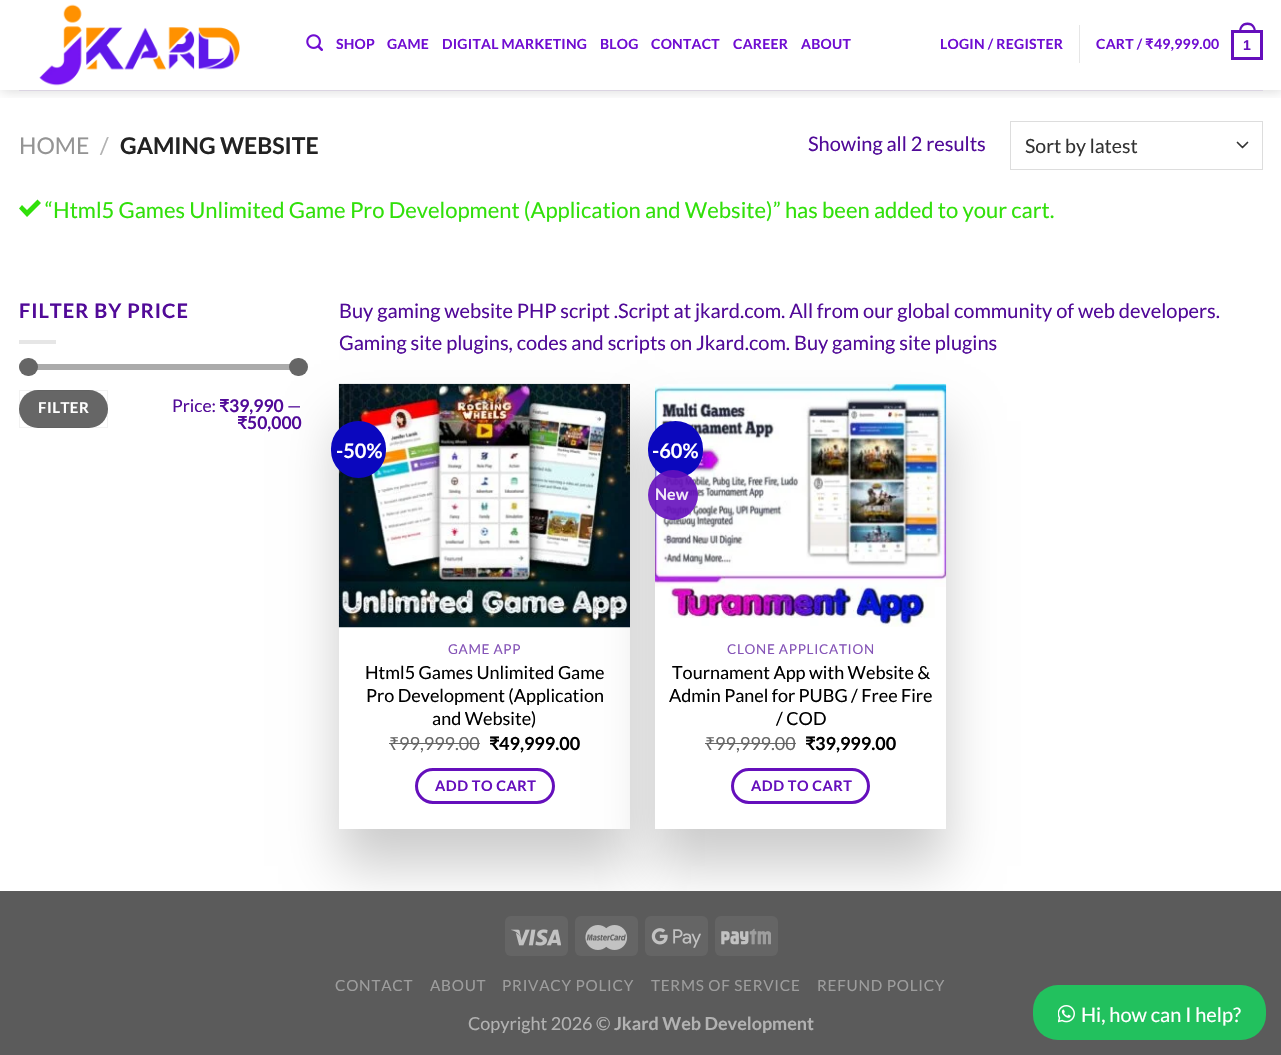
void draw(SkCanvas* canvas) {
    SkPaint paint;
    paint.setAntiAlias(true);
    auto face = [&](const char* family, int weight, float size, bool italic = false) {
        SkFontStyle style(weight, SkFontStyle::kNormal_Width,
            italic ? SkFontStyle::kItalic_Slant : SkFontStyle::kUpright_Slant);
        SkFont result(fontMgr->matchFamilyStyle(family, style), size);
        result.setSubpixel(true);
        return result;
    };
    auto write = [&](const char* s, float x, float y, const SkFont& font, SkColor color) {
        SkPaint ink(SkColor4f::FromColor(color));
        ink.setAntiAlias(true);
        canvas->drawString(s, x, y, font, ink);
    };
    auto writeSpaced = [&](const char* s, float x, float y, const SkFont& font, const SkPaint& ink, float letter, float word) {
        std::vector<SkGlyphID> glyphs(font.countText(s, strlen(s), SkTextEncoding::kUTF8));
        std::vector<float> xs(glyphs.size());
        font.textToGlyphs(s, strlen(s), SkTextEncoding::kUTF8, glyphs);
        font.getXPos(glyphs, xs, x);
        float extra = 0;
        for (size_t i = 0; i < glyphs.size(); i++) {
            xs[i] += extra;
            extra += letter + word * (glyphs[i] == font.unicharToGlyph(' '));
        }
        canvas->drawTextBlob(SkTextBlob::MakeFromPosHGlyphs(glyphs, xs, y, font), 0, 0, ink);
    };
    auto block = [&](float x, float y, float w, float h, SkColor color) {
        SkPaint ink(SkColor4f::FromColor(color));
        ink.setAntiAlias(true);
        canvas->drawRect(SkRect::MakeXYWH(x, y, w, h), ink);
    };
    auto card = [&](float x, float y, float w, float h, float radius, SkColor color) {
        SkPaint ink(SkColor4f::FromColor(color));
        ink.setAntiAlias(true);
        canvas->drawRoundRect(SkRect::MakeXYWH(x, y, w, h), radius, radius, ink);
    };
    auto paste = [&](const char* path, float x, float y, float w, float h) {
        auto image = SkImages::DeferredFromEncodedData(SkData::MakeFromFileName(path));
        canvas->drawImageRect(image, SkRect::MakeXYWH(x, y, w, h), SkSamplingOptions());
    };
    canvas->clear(SK_ColorWHITE);
    canvas->save();
    canvas->clipRect(SkRect::MakeXYWH(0, 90, 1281, 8));
    paint.setColor(SkColorSetARGB(38, 0, 0, 0));
    paint.setMaskFilter(SkMaskFilter::MakeBlur(kNormal_SkBlurStyle, 6));
    canvas->drawRect(SkRect::MakeXYWH(1, 1, 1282, 90), paint);
    paint.setMaskFilter(nullptr);
    canvas->restore();
    paste("pic1.png", 39, 4, 201, 82);
    paste("pic2.png", 306, 34, 17, 17);
    auto kFont1 = face("Lato", 700, 14);
    paint.setColor(SkColorSetRGB(112, 13, 210));
    writeSpaced("SHOP", 336, 49, kFont1, paint, 0.25f, 0);
    writeSpaced("GAME", 387, 49, kFont1, paint, 0.25f, 0);
    writeSpaced("DIGITAL MARKETING", 442, 49, kFont1, paint, 0.25f, 0);
    writeSpaced("BLOG", 600, 49, kFont1, paint, 0.25f, 0);
    writeSpaced("CONTACT", 651, 49, kFont1, paint, 0.25f, 0);
    writeSpaced("CAREER", 733, 49, kFont1, paint, 0.25f, 0);
    writeSpaced("ABOUT", 801, 49, kFont1, paint, 0.25f, 0);
    writeSpaced("LOGIN / REGISTER", 940, 49, kFont1, paint, 0.25f, 0);
    block(1079, 25, 1, 38, SkColorSetRGB(230, 230, 230));
    writeSpaced("CART /", 1096, 49, kFont1, paint, 0.25f, 0);
    auto kFont2 = face("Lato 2", 700, 14);
    writeSpaced("₹", 1145, 49, kFont2, paint, 0.25f, 0);
    writeSpaced("49,999.00", 1154, 49, kFont1, paint, 0.25f, 0);
    paint.setStyle(SkPaint::kStroke_Style);
    paint.setStrokeWidth(3);
    paint.setColor(SkColorSetRGB(101, 15, 188));
    canvas->drawRect(SkRect::MakeXYWH(1232.5f, 31.5f, 29, 27), paint);
    paint.setStyle(SkPaint::kFill_Style);
    canvas->drawPath(SkPathBuilder(SkPathFillType::kEvenOdd).moveTo(1247.5f, 22.5f).cubicTo(1253.5f, 22.5f, 1256, 27, 1256, 32.5f).lineTo(1239, 32.5f).cubicTo(1239, 27, 1241.5f, 22.5f, 1247.5f, 22.5f).close().moveTo(1247.5f, 25).cubicTo(1252, 25, 1254, 28.5f, 1254, 32.5f).lineTo(1241, 32.5f).cubicTo(1241, 28.5f, 1243, 25, 1247.5f, 25).close().detach(), paint);
    auto kFont3 = face("Liberation Sans", 700, 14);
    writeSpaced("1", 1243, 50, kFont3, paint, 0.25f, 0);
    block(19, 90, 1244, 1, SkColorSetRGB(219, 212, 226));
    auto kFont4 = face("Lato", 400, 23);
    write("HOME", 19, 154, kFont4, SkColorSetRGB(148, 148, 148));
    write("/", 100, 154, kFont4, SkColorSetRGB(178, 178, 178));
    auto kFont5 = face("Lato", 700, 23);
    write("GAMING WEBSITE", 120, 154, kFont5, SkColorSetRGB(34, 34, 34));
    auto kFont6 = face("Lato", 400, 20);
    write("Showing all 2 results", 808, 151, kFont6, SkColorSetRGB(81, 10, 152));
    paint.setStyle(SkPaint::kStroke_Style);
    paint.setStrokeWidth(1.7f);
    paint.setStrokeCap(SkPaint::kRound_Cap);
    paint.setStrokeJoin(SkPaint::kRound_Join);
    paint.setColor(SkColorSetRGB(51, 51, 51));
    canvas->drawPath(SkPathBuilder().moveTo(1237.5f, 142.5f).lineTo(1242.5f, 147.5f).lineTo(1247.5f, 142.5f).detach(), paint);
    paint.setStrokeWidth(1);
    paint.setStrokeCap(SkPaint::kButt_Cap);
    paint.setStrokeJoin(SkPaint::kMiter_Join);
    paint.setColor(SkColorSetRGB(221, 221, 221));
    canvas->drawRect(SkRect::MakeXYWH(1010.5f, 121.5f, 252, 48), paint);
    auto kFont7 = face("Lato", 400, 19.5f);
    write("Sort by latest", 1025, 153, kFont7, SkColorSetRGB(51, 51, 51));
    paint.setStyle(SkPaint::kFill_Style);
    paint.setColor(SkColorSetRGB(49, 224, 10));
    canvas->drawPath(SkPathBuilder().moveTo(37.5f, 199.5f).lineTo(27, 210).lineTo(22, 205).lineTo(19, 208.5f).lineTo(27, 217).lineTo(41, 203).close().detach(), paint);
    auto kFont8 = face("Lato", 400, 22);
    write("“Html5 Games Unlimited Game Pro Development (Application and Website)” has been added to your cart.", 45, 218, kFont8, SkColorSetRGB(49, 224, 10));
    auto kFont9 = face("Lato", 700, 20);
    paint.setColor(SkColorSetRGB(81, 10, 152));
    writeSpaced("FILTER BY PRICE", 19, 318, kFont9, paint, 1, 0);
    block(19, 340, 37, 4, SkColorSetRGB(230, 230, 230));
    card(19, 364, 282, 6, 3, SkColorSetRGB(241, 241, 241));
    paint.setColor(SkColorSetARGB(51, 0, 0, 0));
    paint.setMaskFilter(SkMaskFilter::MakeBlur(kNormal_SkBlurStyle, 25));
    canvas->drawRect(SkRect::MakeXYWH(339, 421, 291, 445), paint);
    paint.setMaskFilter(nullptr);
    card(19, 364, 282, 6, 3, SkColorSetARGB(128, 102, 102, 102));
    card(19, 358, 19, 18, 9, SkColorSetRGB(102, 102, 102));
    card(289, 358, 19, 18, 9, SkColorSetRGB(102, 102, 102));
    card(19, 390, 89, 38, 19, SkColorSetRGB(102, 102, 102));
    paint.setStyle(SkPaint::kStroke_Style);
    paint.setColor(SkColorSetARGB(13, 0, 0, 0));
    canvas->drawRect(SkRect::MakeXYWH(19.5f, 390.5f, 88, 37), paint);
    auto kFont10 = face("Lato", 700, 15);
    paint.setStyle(SkPaint::kFill_Style);
    paint.setColor(SK_ColorWHITE);
    writeSpaced("FILTER", 38, 413, kFont10, paint, 0.5f, 0);
    auto kFont11 = face("Lato", 400, 17.5f);
    write("Price:", 172, 412, kFont11, SkColorSetRGB(81, 10, 152));
    auto kFont12 = face("Lato 2", 700, 17.5f);
    write("₹", 219, 412, kFont12, SkColorSetRGB(81, 10, 152));
    auto kFont13 = face("Lato", 700, 17.5f);
    write("39,990", 229, 412, kFont13, SkColorSetRGB(81, 10, 152));
    write("—", 287, 412, kFont11, SkColorSetRGB(81, 10, 152));
    write("₹", 237, 429, kFont12, SkColorSetRGB(81, 10, 152));
    write("50,000", 247, 429, kFont13, SkColorSetRGB(81, 10, 152));
    write("Buy gaming website PHP script .Script at jkard.com. All from our global community of web developers.", 339, 318, kFont6, SkColorSetRGB(81, 10, 152));
    write("Gaming site plugins, codes and scripts on Jkard.com. Buy gaming site plugins", 339, 350, kFont6, SkColorSetRGB(81, 10, 152));
    block(339, 627, 291, 202, SK_ColorWHITE);
    paste("pic3.png", 338, 383, 292, 245);
    card(331, 421, 55, 57, 27.5f, SkColorSetRGB(11, 7, 190));
    write("-50%", 336, 458, kFont9, SK_ColorWHITE);
    auto kFont14 = face("Lato", 400, 13.5f);
    paint.setColor(SkColorSetRGB(133, 84, 183));
    writeSpaced("GAME APP", 448, 654, kFont14, paint, 0.7f, 0);
    auto kFont15 = face("Lato", 400, 18);
    write("Html5 Games Unlimited Game", 365, 679, kFont15, SK_ColorBLACK);
    write("Pro Development (Application", 366, 702, kFont15, SK_ColorBLACK);
    write("and Website)", 432, 725, kFont15, SK_ColorBLACK);
    auto kFont16 = face("Noto Sans", 400, 18);
    write("₹", 389, 750, kFont16, SkColorSetRGB(102, 102, 102));
    block(389, 743, 10, 1, SkColorSetRGB(102, 102, 102));
    block(399, 743, 81, 1, SkColorSetRGB(102, 102, 102));
    write("99,999.00", 399, 750, kFont15, SkColorSetRGB(102, 102, 102));
    auto kFont17 = face("Lato 2", 700, 18);
    write("₹", 489, 750, kFont17, SK_ColorBLACK);
    auto kFont18 = face("Lato", 700, 18);
    write("49,999.00", 499, 750, kFont18, SK_ColorBLACK);
    paint.setStyle(SkPaint::kStroke_Style);
    paint.setStrokeWidth(3);
    paint.setColor(SkColorSetRGB(101, 15, 188));
    canvas->drawRoundRect(SkRect::MakeXYWH(416.5f, 769.5f, 137, 33), 16.5f, 16.5f, paint);
    auto kFont19 = face("Lato", 700, 14.5f);
    paint.setStyle(SkPaint::kFill_Style);
    writeSpaced("ADD TO CART", 435, 791, kFont19, paint, 0.5f, 0);
    paint.setColor(SkColorSetARGB(51, 0, 0, 0));
    paint.setMaskFilter(SkMaskFilter::MakeBlur(kNormal_SkBlurStyle, 25));
    canvas->drawRect(SkRect::MakeXYWH(655, 421, 291, 445), paint);
    paint.setMaskFilter(nullptr);
    block(655, 627, 291, 202, SK_ColorWHITE);
    paste("pic4.png", 655, 383, 292, 244);
    card(648, 421, 55, 57, 27.5f, SkColorSetRGB(11, 7, 190));
    write("-60%", 652, 458, kFont9, SK_ColorWHITE);
    paint.setColor(SkColorSetARGB(230, 101, 15, 188));
    canvas->drawCircle(673, 495, 25, paint);
    auto kFont20 = face("Lato", 700, 16);
    write("New", 655, 500, kFont20, SkColorSetRGB(241, 233, 249));
    paint.setColor(SkColorSetRGB(133, 84, 183));
    writeSpaced("CLONE APPLICATION", 727, 654, kFont14, paint, 0.7f, 0);
    write("Tournament App with Website &", 672, 679, kFont15, SK_ColorBLACK);
    write("Admin Panel for PUBG / Free Fire", 669, 702, kFont15, SK_ColorBLACK);
    write("/ COD", 776, 725, kFont15, SK_ColorBLACK);
    write("₹", 705, 750, kFont16, SkColorSetRGB(102, 102, 102));
    block(705, 743, 10, 1, SkColorSetRGB(102, 102, 102));
    block(715, 743, 81, 1, SkColorSetRGB(102, 102, 102));
    write("99,999.00", 715, 750, kFont15, SkColorSetRGB(102, 102, 102));
    write("₹", 805, 750, kFont17, SK_ColorBLACK);
    write("39,999.00", 815, 750, kFont18, SK_ColorBLACK);
    paint.setStyle(SkPaint::kStroke_Style);
    paint.setColor(SkColorSetRGB(101, 15, 188));
    canvas->drawRoundRect(SkRect::MakeXYWH(732.5f, 769.5f, 136, 33), 16.5f, 16.5f, paint);
    paint.setStyle(SkPaint::kFill_Style);
    writeSpaced("ADD TO CART", 751, 791, kFont19, paint, 0.5f, 0);
    block(0, 891, 1281, 164, SkColorSetRGB(91, 91, 91));
    card(505, 916, 63, 40, 6, SkColorSetRGB(101, 101, 101));
    paste("pic5.png", 511, 929, 50, 17);
    card(575, 916, 63, 40, 6, SkColorSetRGB(101, 101, 101));
    paste("pic6.png", 585, 925, 43, 25);
    card(645, 916, 63, 40, 6, SkColorSetRGB(101, 101, 101));
    paste("pic7.png", 651, 928, 50, 20);
    card(715, 916, 63, 40, 6, SkColorSetRGB(101, 101, 101));
    paste("pic8.png", 721, 928, 50, 17);
    auto kFont21 = face("Lato", 400, 15.25f);
    paint.setColor(SkColorSetRGB(157, 157, 157));
    writeSpaced("CONTACT", 335, 991, kFont21, paint, 0.75f, 0);
    writeSpaced("ABOUT", 430, 991, kFont21, paint, 0.75f, 0);
    writeSpaced("PRIVACY POLICY", 502, 991, kFont21, paint, 0.75f, 0);
    writeSpaced("TERMS OF SERVICE", 651, 991, kFont21, paint, 0.75f, 0);
    writeSpaced("REFUND POLICY", 817, 991, kFont21, paint, 0.75f, 0);
    write("Copyright 2026 ©", 468, 1030, kFont15, SkColorSetRGB(178, 178, 178));
    write("Jkard Web Development", 614, 1030, kFont18, SkColorSetRGB(178, 178, 178));
    card(1033, 985, 233, 55, 25, SkColorSetRGB(34, 193, 94));
    paste("pic9.png", 1058, 1005, 17, 18);
    write("Hi, how can I help?", 1081, 1022, kFont6, SK_ColorWHITE);
}
